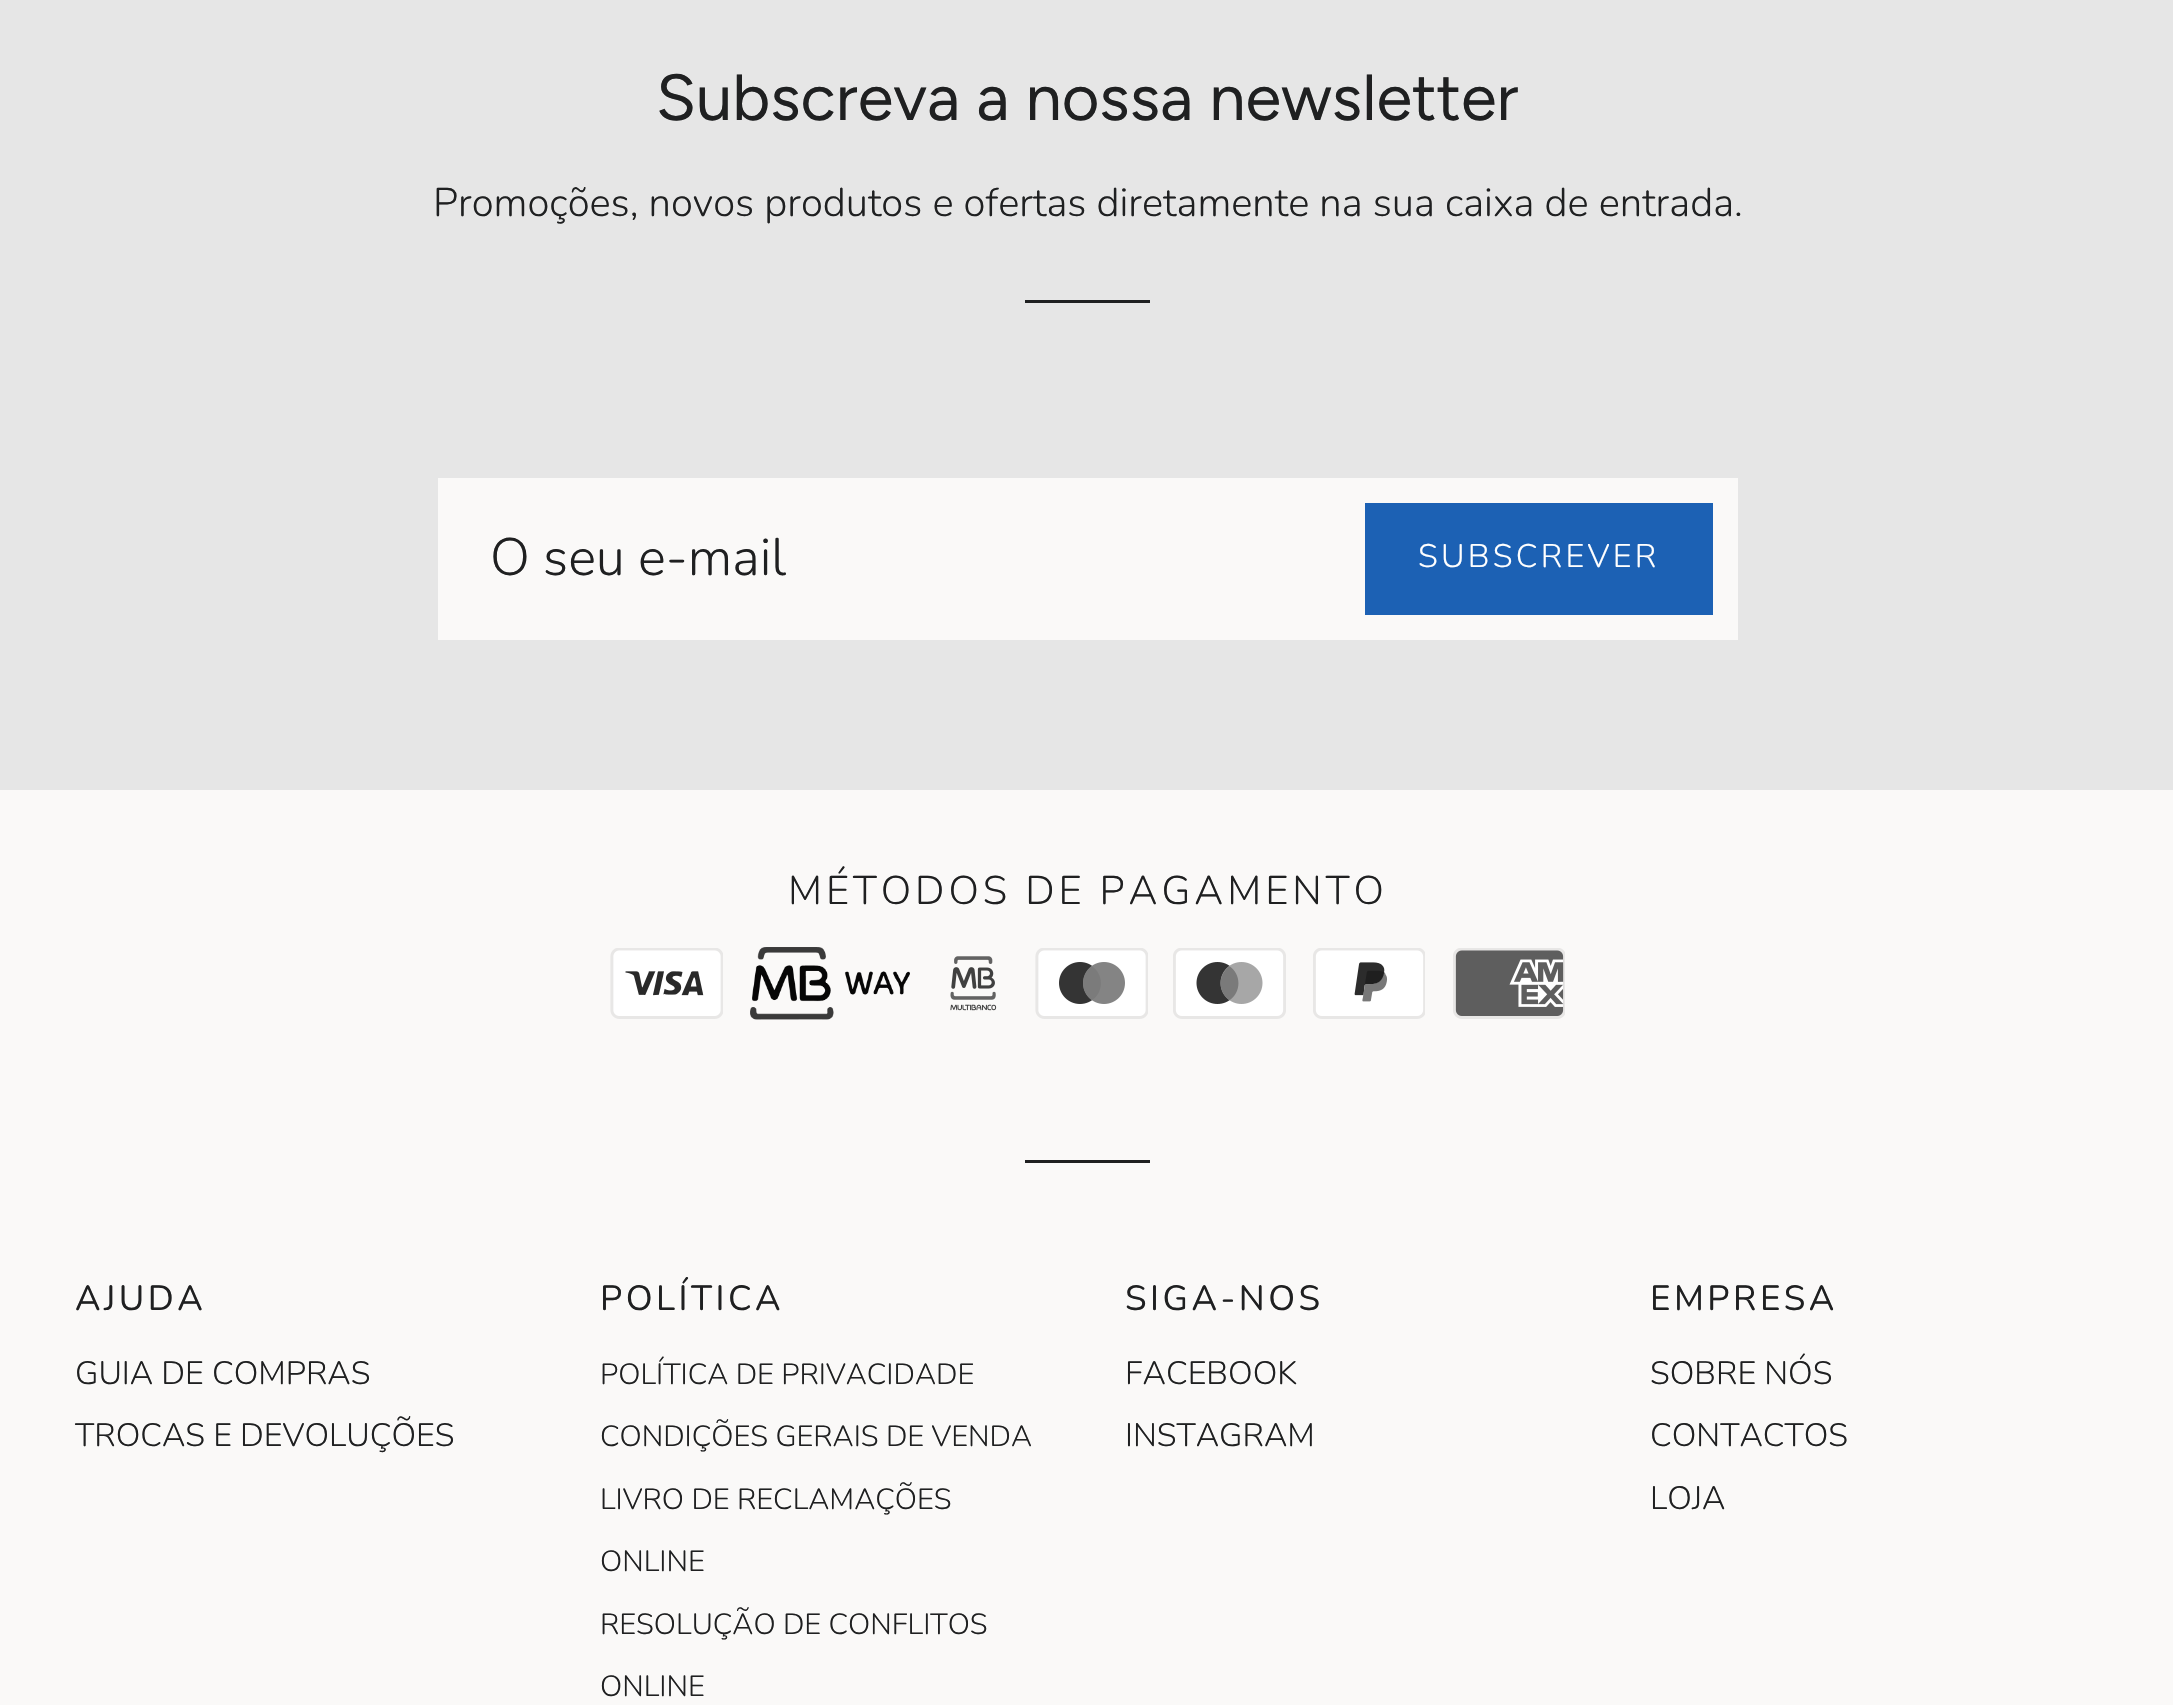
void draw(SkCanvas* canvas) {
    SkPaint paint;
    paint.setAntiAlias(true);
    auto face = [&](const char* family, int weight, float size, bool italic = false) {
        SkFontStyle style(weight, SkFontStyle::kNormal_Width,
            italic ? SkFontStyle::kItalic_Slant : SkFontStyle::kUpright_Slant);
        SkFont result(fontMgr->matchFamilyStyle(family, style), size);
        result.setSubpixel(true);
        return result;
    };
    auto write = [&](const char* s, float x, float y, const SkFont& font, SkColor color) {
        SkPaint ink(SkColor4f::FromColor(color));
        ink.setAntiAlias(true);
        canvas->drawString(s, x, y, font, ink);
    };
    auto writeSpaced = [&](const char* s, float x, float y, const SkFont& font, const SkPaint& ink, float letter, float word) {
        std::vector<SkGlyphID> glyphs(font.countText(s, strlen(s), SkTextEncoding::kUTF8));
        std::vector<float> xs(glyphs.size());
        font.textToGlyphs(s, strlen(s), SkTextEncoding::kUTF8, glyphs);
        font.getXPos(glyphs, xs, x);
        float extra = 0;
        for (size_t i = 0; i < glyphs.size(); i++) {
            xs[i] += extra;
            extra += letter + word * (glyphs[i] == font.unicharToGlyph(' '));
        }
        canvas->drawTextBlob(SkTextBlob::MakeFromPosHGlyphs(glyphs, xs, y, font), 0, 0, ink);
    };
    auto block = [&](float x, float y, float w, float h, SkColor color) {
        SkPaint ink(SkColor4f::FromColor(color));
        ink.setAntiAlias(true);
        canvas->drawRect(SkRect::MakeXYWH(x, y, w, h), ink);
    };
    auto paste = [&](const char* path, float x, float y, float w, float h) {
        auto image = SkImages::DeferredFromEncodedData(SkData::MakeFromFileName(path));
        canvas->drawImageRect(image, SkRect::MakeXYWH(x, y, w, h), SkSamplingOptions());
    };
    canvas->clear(SkColorSetRGB(250, 249, 248));
    block(0, 0, 2173, 790, SkColorSetRGB(230, 230, 230));
    auto kFont1 = face("Figtree", 400, 65);
    write("Subscreva a nossa newsletter", 656, 120, kFont1, SkColorSetRGB(31, 32, 33));
    auto kFont2 = face("Nunito", 300, 40);
    write("Promoções, novos produtos e ofertas diretamente na sua caixa de entrada.", 433, 216, kFont2, SkColorSetRGB(31, 32, 33));
    block(1025, 300, 125, 3, SkColorSetRGB(31, 32, 33));
    block(438, 478, 1300, 162, SkColorSetRGB(250, 249, 248));
    auto kFont3 = face("Nunito", 300, 52.5f);
    write("O seu e-mail", 490, 575, kFont3, SkColorSetRGB(31, 32, 33));
    block(1365, 503, 348, 112, SkColorSetRGB(28, 97, 180));
    auto kFont4 = face("Nunito", 300, 32.5f);
    paint.setColor(SK_ColorWHITE);
    writeSpaced("SUBSCREVER", 1418, 567, kFont4, paint, 3.25f, 0);
    paint.setColor(SkColorSetRGB(31, 32, 33));
    writeSpaced("MÉTODOS DE PAGAMENTO", 788, 904, kFont2, paint, 4, 0);
    paste("pic1.png", 610, 948, 113, 71);
    paste("pic2.png", 750, 947, 160, 73);
    paste("pic3.png", 950, 956, 47, 55);
    paste("pic4.png", 1035, 948, 113, 71);
    paste("pic5.png", 1173, 948, 113, 71);
    paste("pic6.png", 1313, 948, 112, 71);
    paste("pic7.png", 1453, 948, 112, 71);
    block(1025, 1160, 125, 3, SkColorSetRGB(31, 32, 33));
    auto kFont5 = face("Nunito", 400, 35);
    writeSpaced("AJUDA", 75, 1310, kFont5, paint, 3.5f, 0);
    auto kFont6 = face("Nunito", 300, 32.4f);
    write("GUIA DE COMPRAS", 75, 1384, kFont6, SkColorSetRGB(31, 32, 33));
    write("TROCAS E DEVOLUÇÕES", 75, 1446, kFont6, SkColorSetRGB(31, 32, 33));
    writeSpaced("POLÍTICA", 600, 1310, kFont5, paint, 3.5f, 0);
    auto kFont7 = face("Nunito", 300, 29.2f);
    write("POLÍTICA DE PRIVACIDADE", 600, 1384, kFont7, SkColorSetRGB(31, 32, 33));
    write("CONDIÇÕES GERAIS DE VENDA", 600, 1446, kFont7, SkColorSetRGB(31, 32, 33));
    write("LIVRO DE RECLAMAÇÕES", 600, 1509, kFont7, SkColorSetRGB(31, 32, 33));
    write("ONLINE", 600, 1571, kFont7, SkColorSetRGB(31, 32, 33));
    write("RESOLUÇÃO DE CONFLITOS", 600, 1634, kFont7, SkColorSetRGB(31, 32, 33));
    write("ONLINE", 600, 1696, kFont7, SkColorSetRGB(31, 32, 33));
    writeSpaced("SIGA-NOS", 1125, 1310, kFont5, paint, 3.5f, 0);
    write("FACEBOOK", 1125, 1384, kFont6, SkColorSetRGB(31, 32, 33));
    write("INSTAGRAM", 1125, 1446, kFont6, SkColorSetRGB(31, 32, 33));
    writeSpaced("EMPRESA", 1650, 1310, kFont5, paint, 3.5f, 0);
    write("SOBRE NÓS", 1650, 1384, kFont6, SkColorSetRGB(31, 32, 33));
    write("CONTACTOS", 1650, 1446, kFont6, SkColorSetRGB(31, 32, 33));
    write("LOJA", 1650, 1509, kFont6, SkColorSetRGB(31, 32, 33));
}
